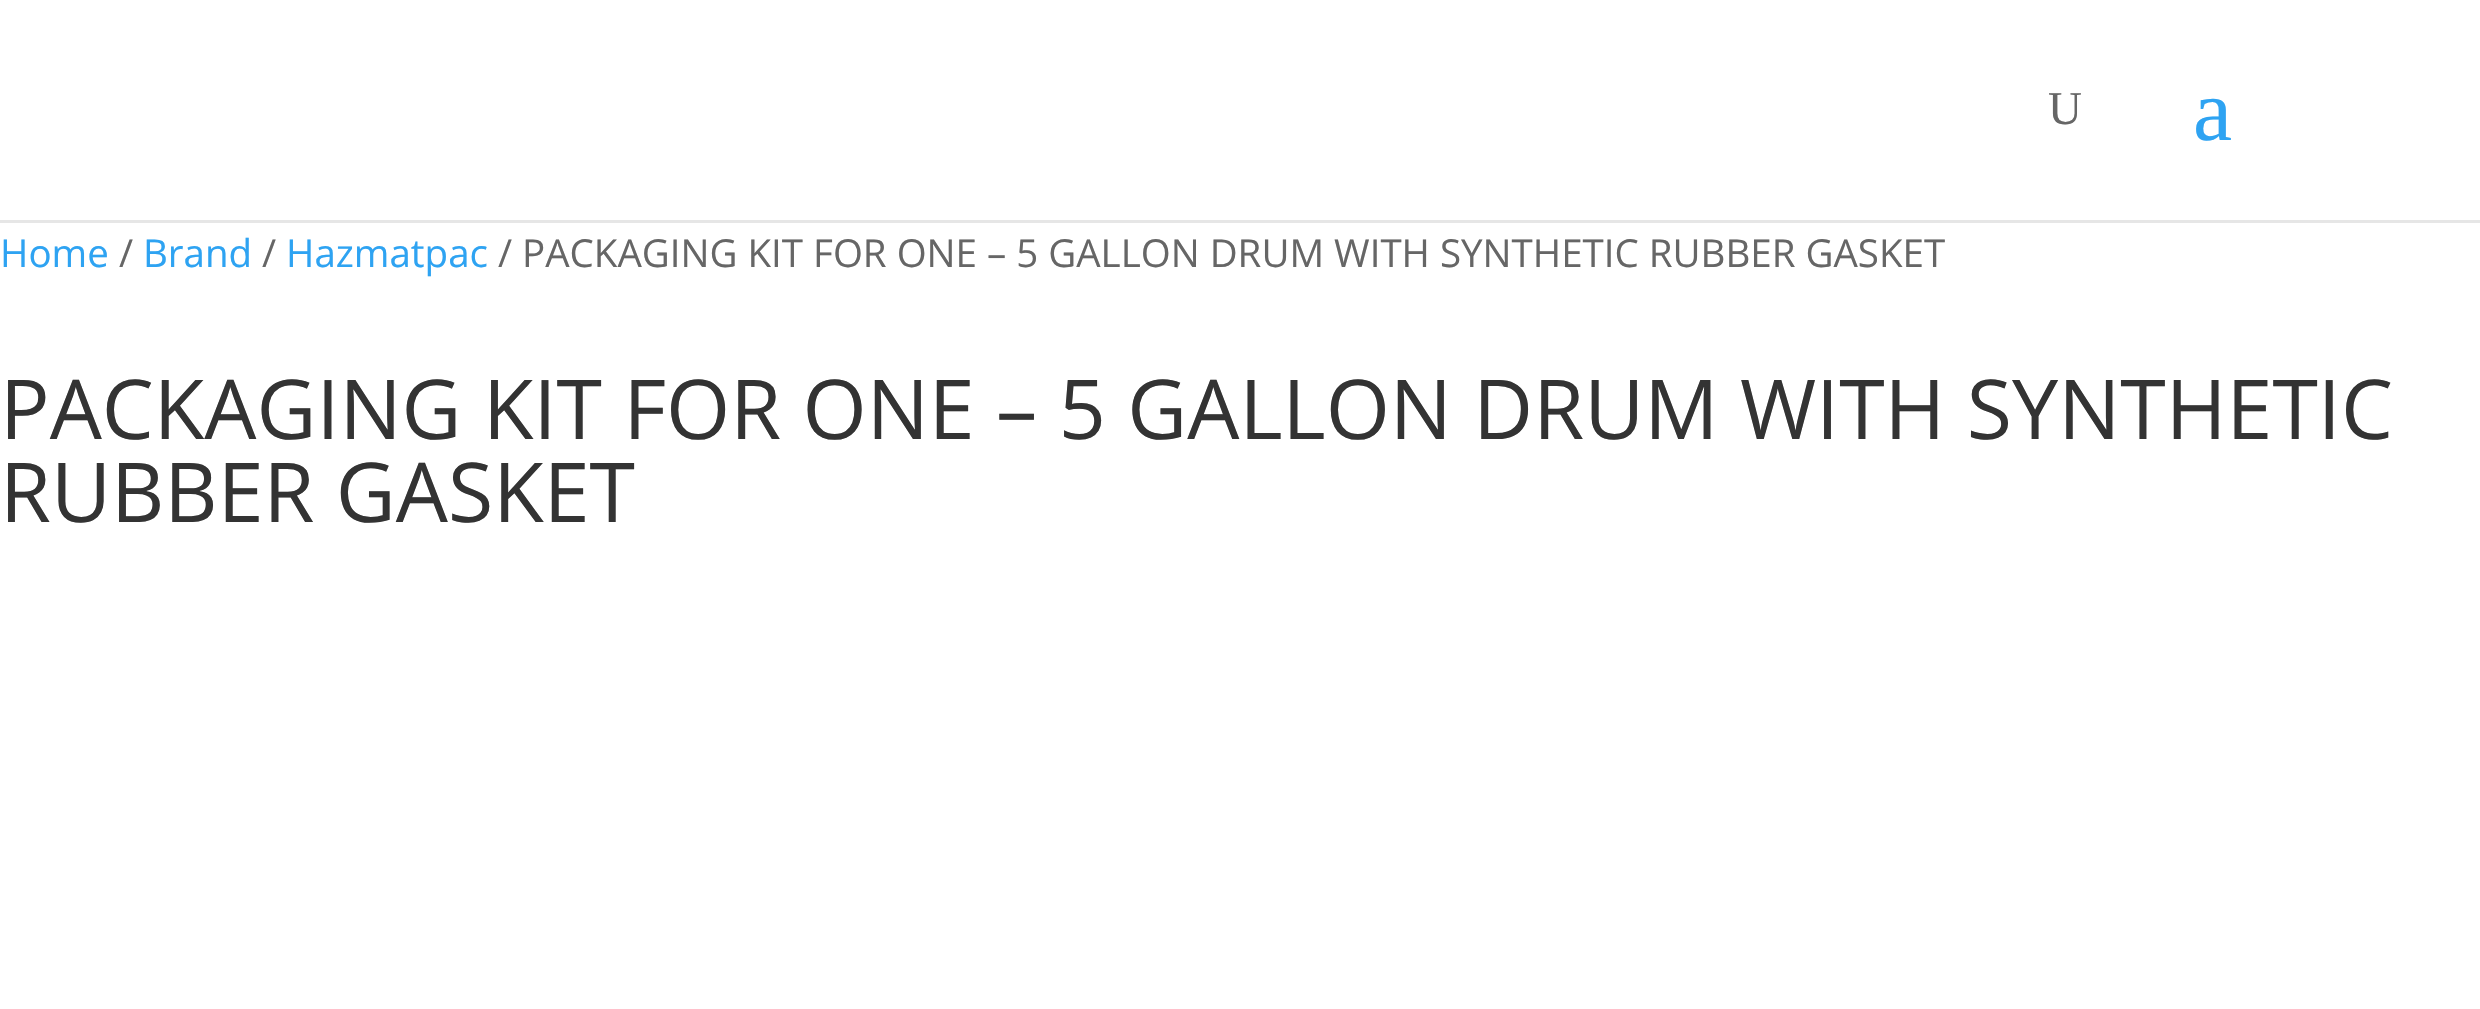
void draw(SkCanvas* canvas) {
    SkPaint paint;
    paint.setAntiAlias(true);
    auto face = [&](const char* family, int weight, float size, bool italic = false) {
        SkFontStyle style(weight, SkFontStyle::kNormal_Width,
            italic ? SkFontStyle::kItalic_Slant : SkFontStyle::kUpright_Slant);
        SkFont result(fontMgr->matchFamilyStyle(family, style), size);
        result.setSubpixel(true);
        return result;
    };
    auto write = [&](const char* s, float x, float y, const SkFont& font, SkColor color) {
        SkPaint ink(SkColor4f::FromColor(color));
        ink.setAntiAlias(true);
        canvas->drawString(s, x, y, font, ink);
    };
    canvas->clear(SK_ColorWHITE);
    paint.setColor(SkColorSetRGB(230, 230, 230));
    canvas->drawPath(SkPathBuilder().moveTo(0, 220).lineTo(0, 223).lineTo(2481, 223).lineTo(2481, 3).lineTo(2480, 3).lineTo(2480, 220).close().detach(), paint);
    auto kFont1 = face("Liberation Serif", 400, 47);
    write("U", 2048, 124, kFont1, SkColorSetRGB(102, 102, 102));
    auto kFont2 = face("Liberation Serif", 400, 88);
    write("a", 2193, 140, kFont2, SkColorSetRGB(46, 163, 242));
    auto kFont3 = face("Open Sans", 400, 38.5f);
    write("Home", 0, 267, kFont3, SkColorSetRGB(46, 163, 242));
    write("/", 119, 267, kFont3, SkColorSetRGB(102, 102, 102));
    write("Brand", 143, 267, kFont3, SkColorSetRGB(46, 163, 242));
    write("/", 262, 267, kFont3, SkColorSetRGB(102, 102, 102));
    write("Hazmatpac", 286, 267, kFont3, SkColorSetRGB(46, 163, 242));
    write("/ PACKAGING KIT FOR ONE – 5 GALLON DRUM WITH SYNTHETIC RUBBER GASKET", 498, 267, kFont3, SkColorSetRGB(102, 102, 102));
    auto kFont4 = face("Open Sans", 400, 82.5f);
    write("PACKAGING KIT FOR ONE – 5 GALLON DRUM WITH SYNTHETIC", 0, 439, kFont4, SkColorSetRGB(51, 51, 51));
    write("RUBBER GASKET", 0, 522, kFont4, SkColorSetRGB(51, 51, 51));
}
